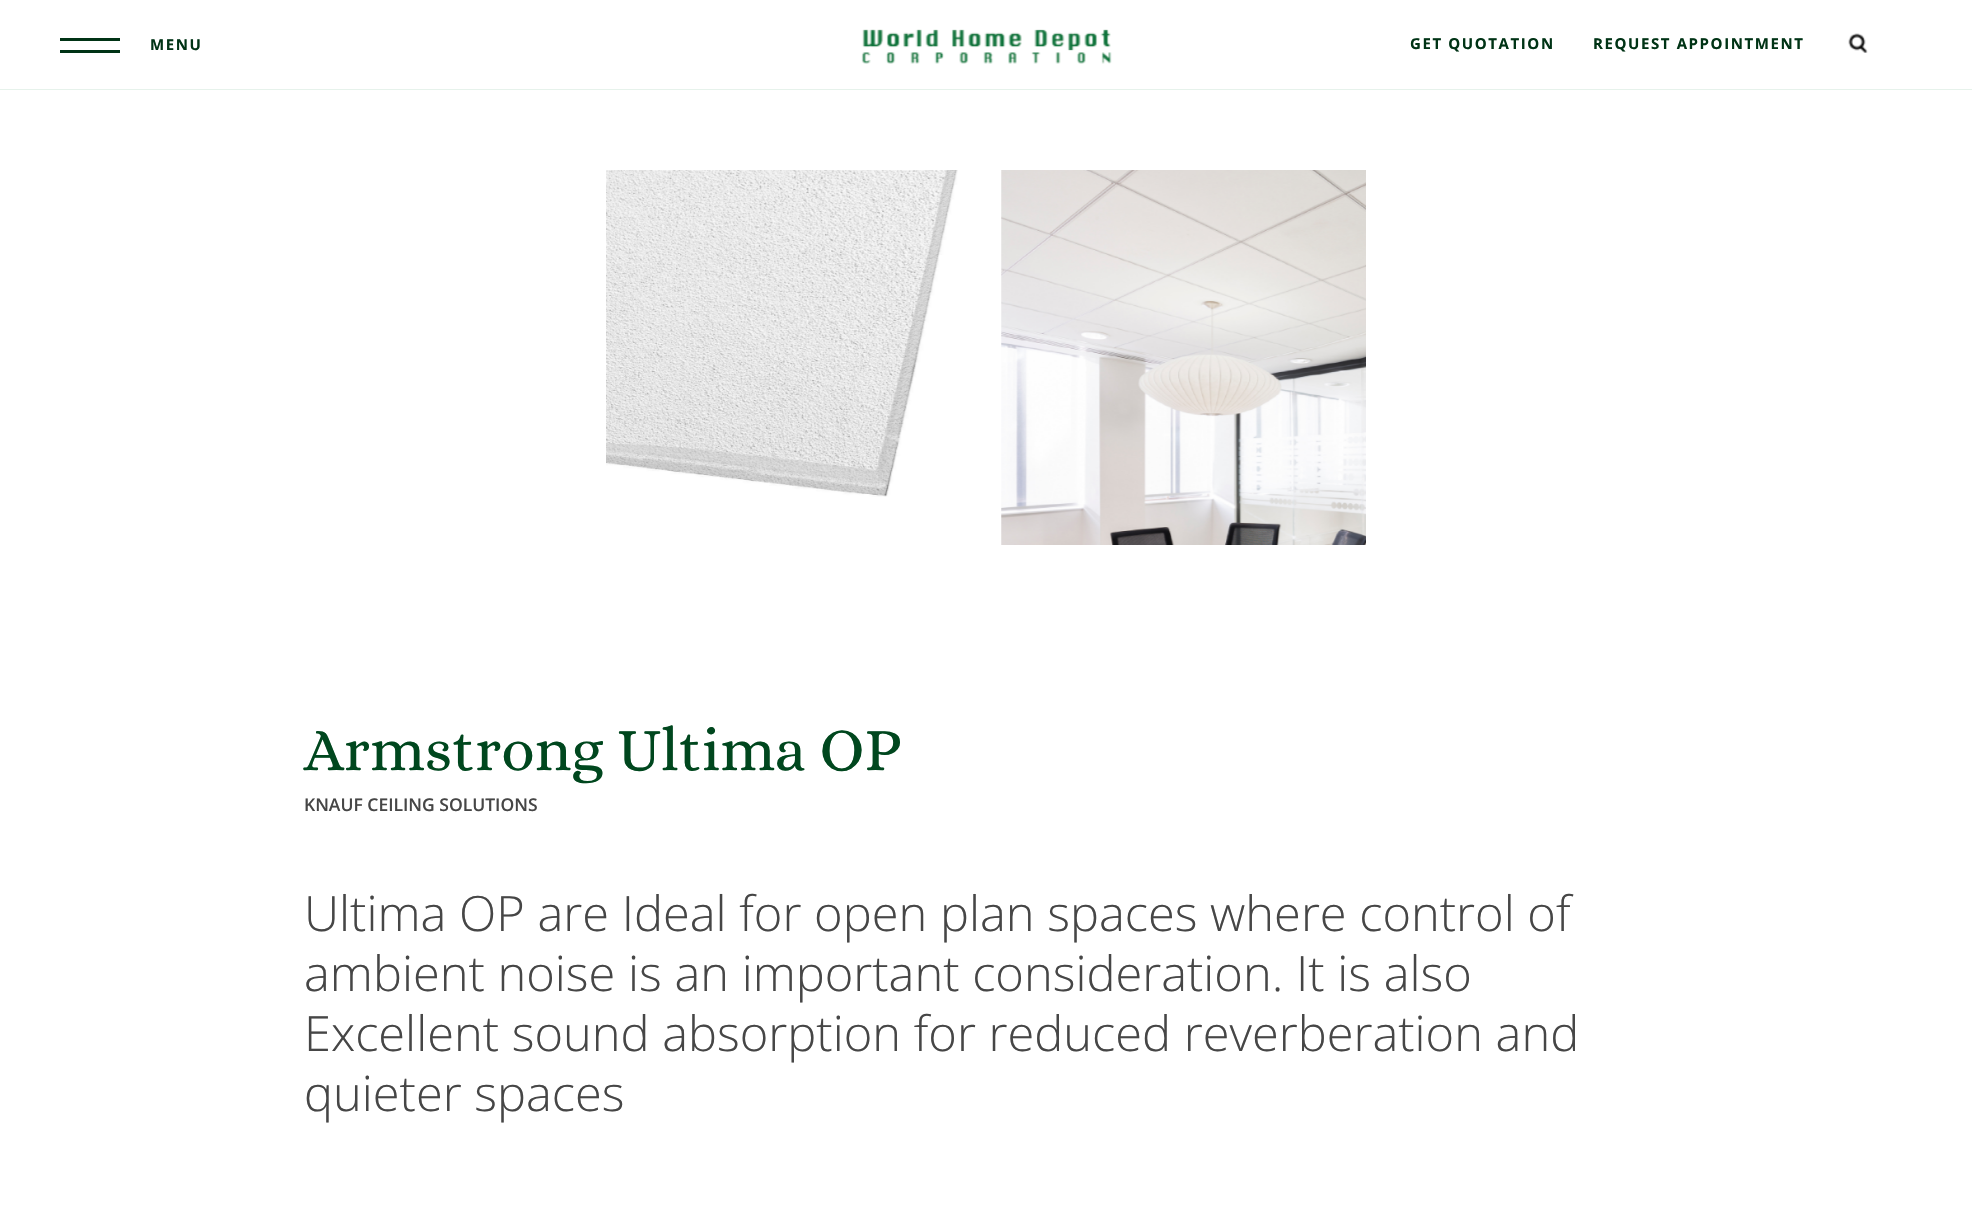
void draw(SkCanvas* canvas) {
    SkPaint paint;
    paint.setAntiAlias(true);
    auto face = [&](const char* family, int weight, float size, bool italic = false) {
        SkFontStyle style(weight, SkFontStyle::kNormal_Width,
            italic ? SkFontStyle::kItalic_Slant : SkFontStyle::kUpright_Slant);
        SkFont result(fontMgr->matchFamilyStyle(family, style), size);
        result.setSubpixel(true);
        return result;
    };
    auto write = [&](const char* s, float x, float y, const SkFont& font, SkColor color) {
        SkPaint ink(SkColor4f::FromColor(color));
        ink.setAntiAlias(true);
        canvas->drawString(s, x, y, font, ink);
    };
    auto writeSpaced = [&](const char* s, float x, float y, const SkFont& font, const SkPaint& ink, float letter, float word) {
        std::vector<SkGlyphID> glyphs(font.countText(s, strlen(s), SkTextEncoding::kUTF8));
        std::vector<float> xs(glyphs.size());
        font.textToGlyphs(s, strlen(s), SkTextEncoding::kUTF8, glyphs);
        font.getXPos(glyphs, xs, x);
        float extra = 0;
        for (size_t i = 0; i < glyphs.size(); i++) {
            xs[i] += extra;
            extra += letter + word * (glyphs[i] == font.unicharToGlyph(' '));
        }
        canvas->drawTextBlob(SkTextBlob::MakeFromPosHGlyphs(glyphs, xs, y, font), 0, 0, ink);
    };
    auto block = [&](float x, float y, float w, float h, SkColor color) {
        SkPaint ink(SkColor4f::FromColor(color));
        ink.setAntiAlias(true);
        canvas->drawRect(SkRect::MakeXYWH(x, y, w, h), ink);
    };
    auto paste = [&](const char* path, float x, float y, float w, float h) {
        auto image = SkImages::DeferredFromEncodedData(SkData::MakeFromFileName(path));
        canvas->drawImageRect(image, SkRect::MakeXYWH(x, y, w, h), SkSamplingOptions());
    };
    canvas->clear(SK_ColorWHITE);
    block(0, 89, 1972, 1, SkColorSetRGB(230, 242, 235));
    paste("pic1.png", 861, 29, 251, 35);
    block(60, 38, 60, 3, SkColorSetRGB(0, 51, 21));
    block(60, 50, 60, 3, SkColorSetRGB(0, 51, 21));
    auto kFont1 = face("Open Sans", 700, 15);
    paint.setColor(SkColorSetRGB(0, 51, 21));
    writeSpaced("MENU", 150, 50, kFont1, paint, 1.6f, 0);
    writeSpaced("GET QUOTATION", 1410, 49, kFont1, paint, 1.6f, 0);
    writeSpaced("REQUEST APPOINTMENT", 1593, 49, kFont1, paint, 1.6f, 0);
    paste("pic2.png", 1848, 33, 20, 20);
    paste("pic3.png", 606, 170, 352, 327);
    paste("pic4.png", 1001, 170, 365, 375);
    auto kFont2 = face("Alice", 400, 61.25f);
    write("Armstrong Ultima OP", 304, 770, kFont2, SkColorSetRGB(0, 71, 30));
    auto kFont3 = face("Open Sans", 600, 17.5f);
    write("KNAUF CEILING SOLUTIONS", 304, 811, kFont3, SkColorSetRGB(70, 70, 70));
    auto kFont4 = face("Open Sans", 300, 48.75f);
    write("Ultima OP are Ideal for open plan spaces where control of", 304, 931, kFont4, SkColorSetRGB(70, 70, 70));
    write("ambient noise is an important consideration. It is also", 304, 991, kFont4, SkColorSetRGB(70, 70, 70));
    write("Excellent sound absorption for reduced reverberation and", 304, 1051, kFont4, SkColorSetRGB(70, 70, 70));
    write("quieter spaces", 304, 1111, kFont4, SkColorSetRGB(70, 70, 70));
}
